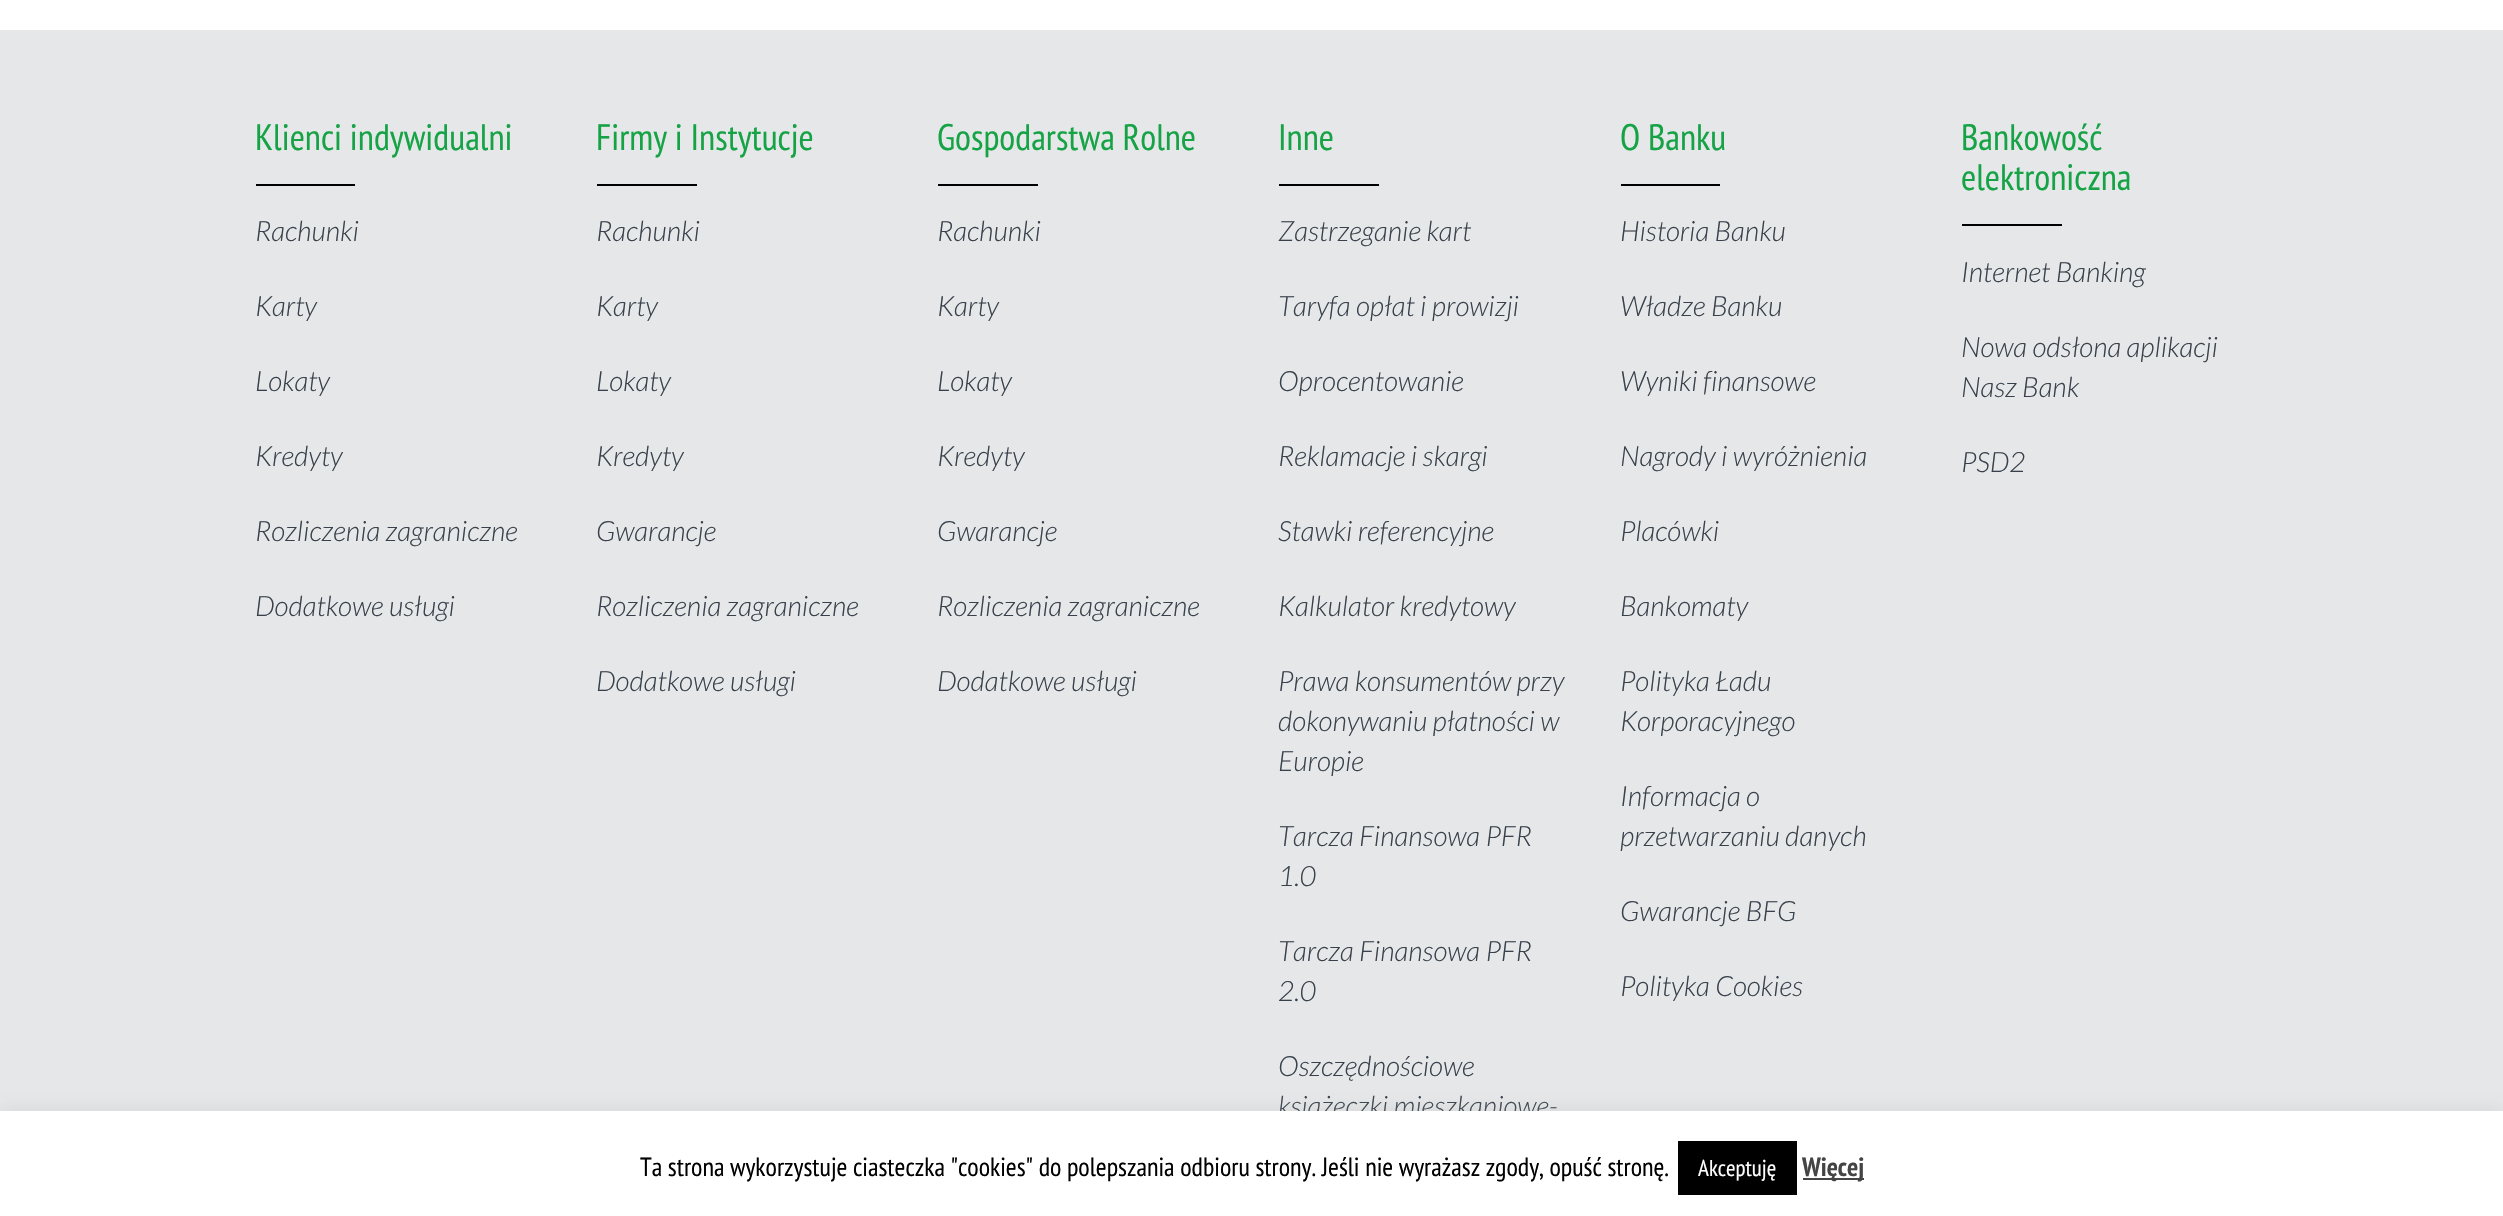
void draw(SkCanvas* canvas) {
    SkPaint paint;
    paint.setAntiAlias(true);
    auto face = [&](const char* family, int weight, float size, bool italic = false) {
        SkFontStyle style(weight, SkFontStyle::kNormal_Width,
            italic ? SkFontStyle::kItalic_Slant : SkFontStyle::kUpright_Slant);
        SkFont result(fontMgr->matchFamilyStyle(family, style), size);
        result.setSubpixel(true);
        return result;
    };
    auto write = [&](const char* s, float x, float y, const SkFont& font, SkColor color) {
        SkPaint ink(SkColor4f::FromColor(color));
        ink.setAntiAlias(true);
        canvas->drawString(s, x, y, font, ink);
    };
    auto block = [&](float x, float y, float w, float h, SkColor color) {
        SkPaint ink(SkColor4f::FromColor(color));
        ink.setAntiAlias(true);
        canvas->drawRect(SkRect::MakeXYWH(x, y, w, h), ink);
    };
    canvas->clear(SK_ColorWHITE);
    block(0, 30, 2503, 1081, SkColorSetRGB(229, 231, 232));
    auto kFont1 = face("PT Sans Narrow", 400, 36.75f);
    write("Klienci indywidualni", 255, 150, kFont1, SkColorSetRGB(21, 163, 70));
    block(256, 184, 99, 2, SK_ColorBLACK);
    auto kFont2 = face("Lato", 300, 28, true);
    write("Rachunki", 255, 241, kFont2, SkColorSetRGB(56, 65, 75));
    write("Karty", 255, 316, kFont2, SkColorSetRGB(56, 65, 75));
    write("Lokaty", 255, 391, kFont2, SkColorSetRGB(56, 65, 75));
    write("Kredyty", 255, 466, kFont2, SkColorSetRGB(56, 65, 75));
    write("Rozliczenia zagraniczne", 255, 541, kFont2, SkColorSetRGB(56, 65, 75));
    write("Dodatkowe usługi", 255, 616, kFont2, SkColorSetRGB(56, 65, 75));
    write("Firmy i Instytucje", 596, 150, kFont1, SkColorSetRGB(21, 163, 70));
    block(597, 184, 100, 2, SK_ColorBLACK);
    write("Rachunki", 596, 241, kFont2, SkColorSetRGB(56, 65, 75));
    write("Karty", 596, 316, kFont2, SkColorSetRGB(56, 65, 75));
    write("Lokaty", 596, 391, kFont2, SkColorSetRGB(56, 65, 75));
    write("Kredyty", 596, 466, kFont2, SkColorSetRGB(56, 65, 75));
    write("Gwarancje", 596, 541, kFont2, SkColorSetRGB(56, 65, 75));
    write("Rozliczenia zagraniczne", 596, 616, kFont2, SkColorSetRGB(56, 65, 75));
    write("Dodatkowe usługi", 596, 691, kFont2, SkColorSetRGB(56, 65, 75));
    write("Gospodarstwa Rolne", 937, 150, kFont1, SkColorSetRGB(21, 163, 70));
    block(938, 184, 100, 2, SK_ColorBLACK);
    write("Rachunki", 937, 241, kFont2, SkColorSetRGB(56, 65, 75));
    write("Karty", 937, 316, kFont2, SkColorSetRGB(56, 65, 75));
    write("Lokaty", 937, 391, kFont2, SkColorSetRGB(56, 65, 75));
    write("Kredyty", 937, 466, kFont2, SkColorSetRGB(56, 65, 75));
    write("Gwarancje", 937, 541, kFont2, SkColorSetRGB(56, 65, 75));
    write("Rozliczenia zagraniczne", 937, 616, kFont2, SkColorSetRGB(56, 65, 75));
    write("Dodatkowe usługi", 937, 691, kFont2, SkColorSetRGB(56, 65, 75));
    write("Inne", 1278, 150, kFont1, SkColorSetRGB(21, 163, 70));
    block(1279, 184, 100, 2, SK_ColorBLACK);
    write("Zastrzeganie kart", 1278, 241, kFont2, SkColorSetRGB(56, 65, 75));
    write("Taryfa opłat i prowizji", 1278, 316, kFont2, SkColorSetRGB(56, 65, 75));
    write("Oprocentowanie", 1278, 391, kFont2, SkColorSetRGB(56, 65, 75));
    write("Reklamacje i skargi", 1278, 466, kFont2, SkColorSetRGB(56, 65, 75));
    write("Stawki referencyjne", 1278, 541, kFont2, SkColorSetRGB(56, 65, 75));
    write("Kalkulator kredytowy", 1278, 616, kFont2, SkColorSetRGB(56, 65, 75));
    write("Prawa konsumentów przy", 1278, 691, kFont2, SkColorSetRGB(56, 65, 75));
    write("dokonywaniu płatności w", 1278, 731, kFont2, SkColorSetRGB(56, 65, 75));
    write("Europie", 1278, 771, kFont2, SkColorSetRGB(56, 65, 75));
    write("Tarcza Finansowa PFR", 1278, 846, kFont2, SkColorSetRGB(56, 65, 75));
    write("1.0", 1278, 886, kFont2, SkColorSetRGB(56, 65, 75));
    write("Tarcza Finansowa PFR", 1278, 961, kFont2, SkColorSetRGB(56, 65, 75));
    write("2.0", 1278, 1001, kFont2, SkColorSetRGB(56, 65, 75));
    write("Oszczędnościowe", 1278, 1076, kFont2, SkColorSetRGB(56, 65, 75));
    write("książeczki mieszkaniowe-", 1278, 1116, kFont2, SkColorSetRGB(56, 65, 75));
    write("O Banku", 1620, 150, kFont1, SkColorSetRGB(21, 163, 70));
    block(1621, 184, 99, 2, SK_ColorBLACK);
    write("Historia Banku", 1620, 241, kFont2, SkColorSetRGB(56, 65, 75));
    write("Władze Banku", 1620, 316, kFont2, SkColorSetRGB(56, 65, 75));
    write("Wyniki finansowe", 1620, 391, kFont2, SkColorSetRGB(56, 65, 75));
    write("Nagrody i wyróżnienia", 1620, 466, kFont2, SkColorSetRGB(56, 65, 75));
    write("Placówki", 1620, 541, kFont2, SkColorSetRGB(56, 65, 75));
    write("Bankomaty", 1620, 616, kFont2, SkColorSetRGB(56, 65, 75));
    write("Polityka Ładu", 1620, 691, kFont2, SkColorSetRGB(56, 65, 75));
    write("Korporacyjnego", 1620, 731, kFont2, SkColorSetRGB(56, 65, 75));
    write("Informacja o", 1620, 806, kFont2, SkColorSetRGB(56, 65, 75));
    write("przetwarzaniu danych", 1620, 846, kFont2, SkColorSetRGB(56, 65, 75));
    write("Gwarancje BFG", 1620, 921, kFont2, SkColorSetRGB(56, 65, 75));
    write("Polityka Cookies", 1620, 996, kFont2, SkColorSetRGB(56, 65, 75));
    write("Bankowość", 1961, 150, kFont1, SkColorSetRGB(21, 163, 70));
    write("elektroniczna", 1961, 190, kFont1, SkColorSetRGB(21, 163, 70));
    block(1962, 224, 100, 2, SK_ColorBLACK);
    write("Internet Banking", 1961, 282, kFont2, SkColorSetRGB(56, 65, 75));
    write("Nowa odsłona aplikacji", 1961, 357, kFont2, SkColorSetRGB(56, 65, 75));
    write("Nasz Bank", 1961, 397, kFont2, SkColorSetRGB(56, 65, 75));
    write("PSD2", 1961, 472, kFont2, SkColorSetRGB(56, 65, 75));
    paint.setColor(SkColorSetARGB(77, 172, 171, 171));
    paint.setMaskFilter(SkMaskFilter::MakeBlur(kNormal_SkBlurStyle, 9));
    canvas->drawRect(SkRect::MakeXYWH(0, 1110, 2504, 105), paint);
    paint.setMaskFilter(nullptr);
    block(0, 1111, 2503, 105, SK_ColorWHITE);
    auto kFont3 = face("PT Sans Narrow", 400, 26.25f);
    write("Ta strona wykorzystuje ciasteczka \"cookies\" do polepszania odbioru strony. Jeśli nie wyrażasz zgody, opuść stronę.", 640, 1176, kFont3, SK_ColorBLACK);
    block(1678, 1141, 119, 54, SK_ColorBLACK);
    auto kFont4 = face("PT Sans Narrow", 400, 23);
    write("Akceptuję", 1698, 1176, kFont4, SK_ColorWHITE);
    block(1803, 1178, 61, 2, SkColorSetRGB(68, 68, 68));
    auto kFont5 = face("PT Sans Narrow", 700, 26.25f);
    write("Więcej", 1802, 1176, kFont5, SkColorSetRGB(68, 68, 68));
}
